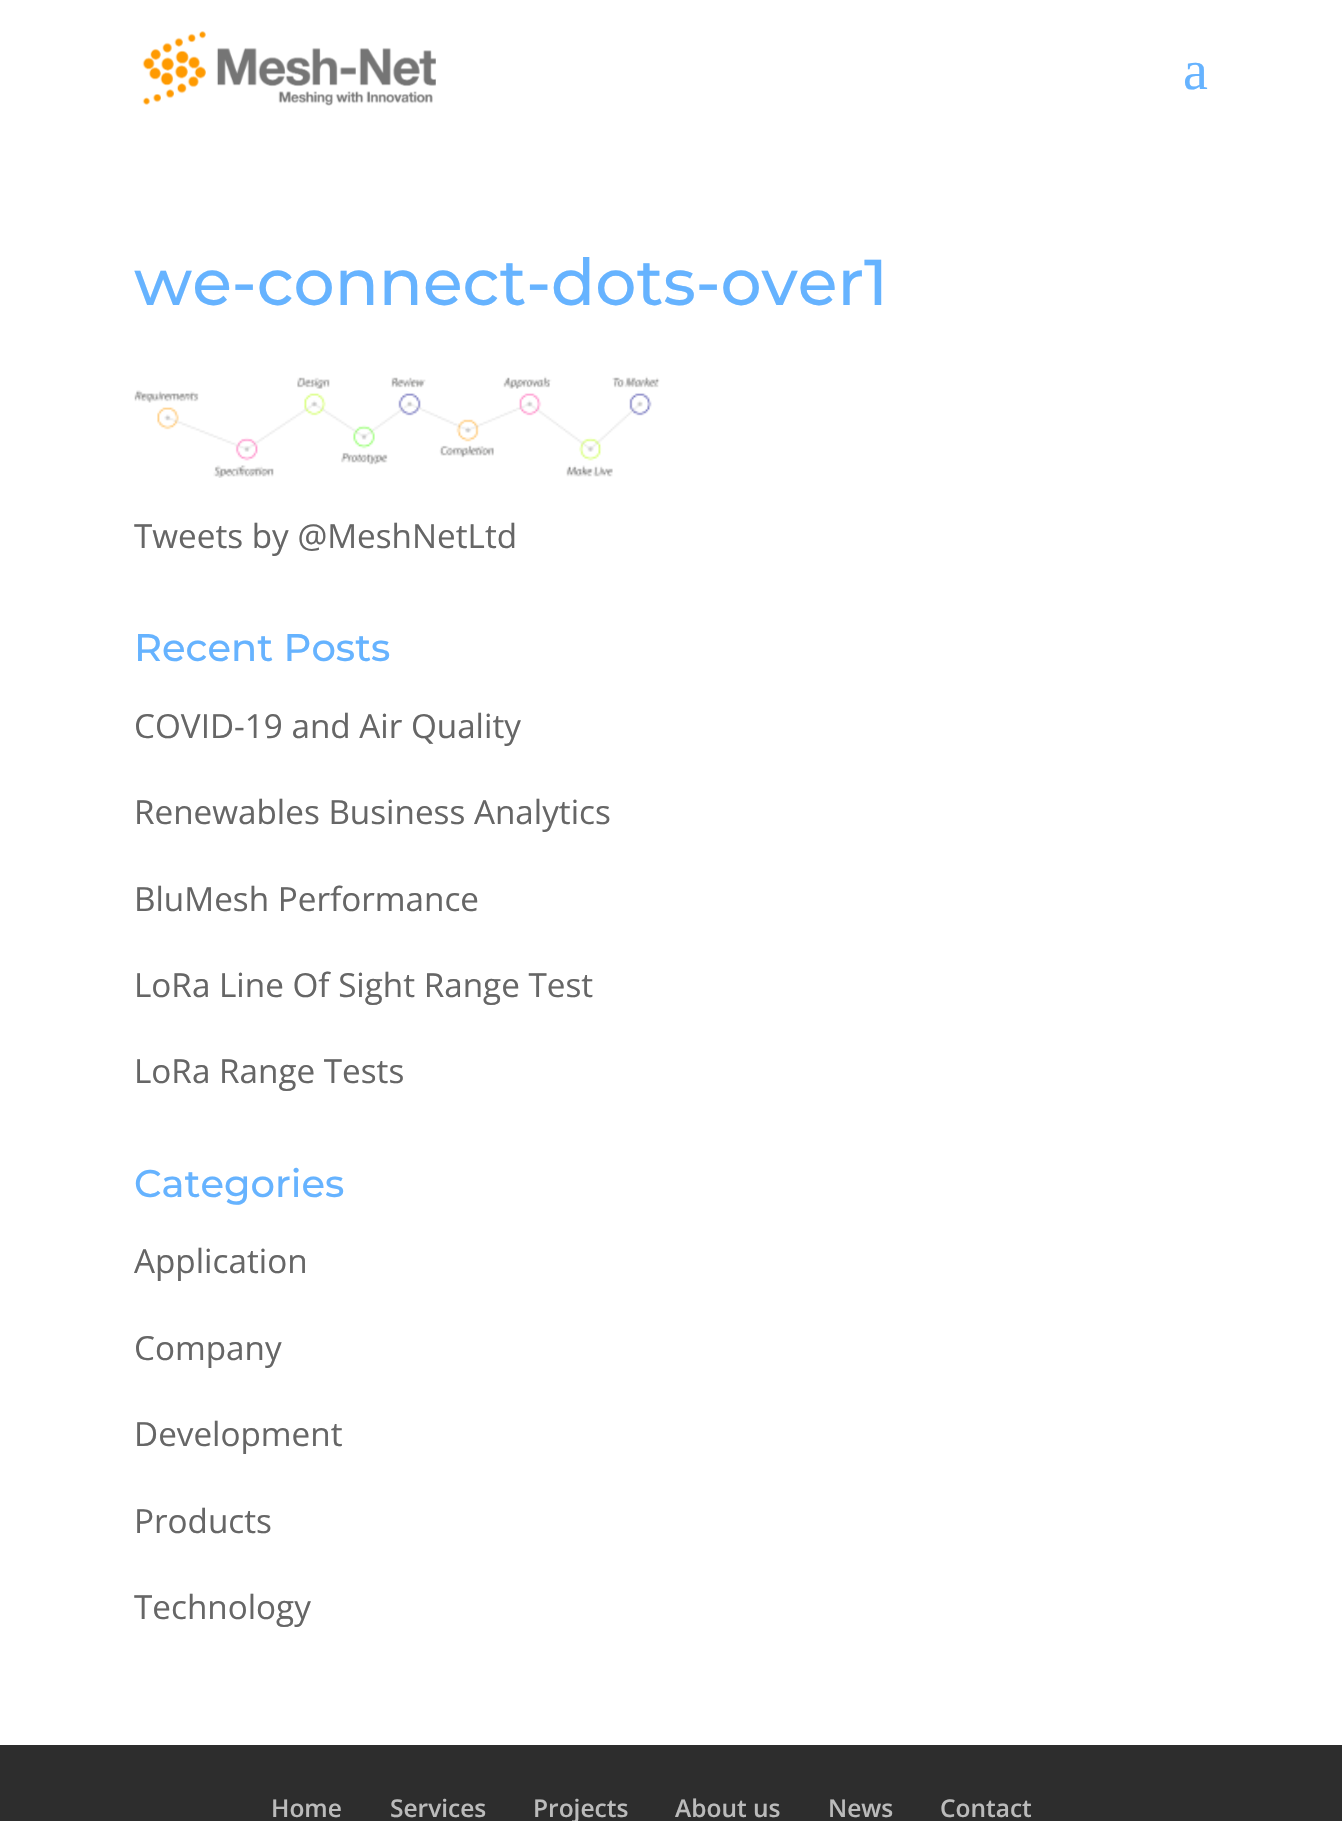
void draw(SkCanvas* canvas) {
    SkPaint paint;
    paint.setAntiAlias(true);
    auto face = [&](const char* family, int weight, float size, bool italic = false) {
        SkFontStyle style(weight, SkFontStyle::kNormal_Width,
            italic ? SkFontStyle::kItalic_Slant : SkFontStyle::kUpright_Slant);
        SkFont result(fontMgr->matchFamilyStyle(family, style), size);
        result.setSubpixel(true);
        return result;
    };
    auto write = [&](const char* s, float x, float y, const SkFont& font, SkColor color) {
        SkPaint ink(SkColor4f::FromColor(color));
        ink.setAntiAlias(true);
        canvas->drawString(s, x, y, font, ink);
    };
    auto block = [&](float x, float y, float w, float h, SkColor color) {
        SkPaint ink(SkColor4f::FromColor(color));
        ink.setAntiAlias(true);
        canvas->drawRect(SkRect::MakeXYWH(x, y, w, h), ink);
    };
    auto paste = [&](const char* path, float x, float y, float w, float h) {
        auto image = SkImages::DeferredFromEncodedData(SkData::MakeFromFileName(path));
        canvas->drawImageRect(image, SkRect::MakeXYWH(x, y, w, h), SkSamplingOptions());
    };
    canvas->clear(SK_ColorWHITE);
    paste("pic1.png", 142, 31, 294, 75);
    auto kFont1 = face("Liberation Serif", 400, 56);
    write("a", 1183, 89, kFont1, SkColorSetRGB(102, 179, 255));
    auto kFont2 = face("Montserrat", 500, 64.75f);
    write("we-connect-dots-over1", 134, 305, kFont2, SkColorSetRGB(102, 179, 255));
    paste("pic2.png", 134, 376, 526, 102);
    auto kFont3 = face("Open Sans", 400, 33.25f);
    write("Tweets by @MeshNetLtd", 134, 548, kFont3, SkColorSetRGB(102, 102, 102));
    auto kFont4 = face("Montserrat", 500, 38.5f);
    write("Recent Posts", 134, 661, kFont4, SkColorSetRGB(102, 179, 255));
    write("COVID-19 and Air Quality", 134, 738, kFont3, SkColorSetRGB(102, 102, 102));
    write("Renewables Business Analytics", 134, 824, kFont3, SkColorSetRGB(102, 102, 102));
    write("BluMesh Performance", 134, 911, kFont3, SkColorSetRGB(102, 102, 102));
    write("LoRa Line Of Sight Range Test", 134, 997, kFont3, SkColorSetRGB(102, 102, 102));
    write("LoRa Range Tests", 134, 1083, kFont3, SkColorSetRGB(102, 102, 102));
    write("Categories", 134, 1197, kFont4, SkColorSetRGB(102, 179, 255));
    write("Application", 134, 1273, kFont3, SkColorSetRGB(102, 102, 102));
    write("Company", 134, 1360, kFont3, SkColorSetRGB(102, 102, 102));
    write("Development", 134, 1446, kFont3, SkColorSetRGB(102, 102, 102));
    write("Products", 134, 1533, kFont3, SkColorSetRGB(102, 102, 102));
    write("Technology", 134, 1619, kFont3, SkColorSetRGB(102, 102, 102));
    block(0, 1745, 1342, 76, SkColorSetRGB(45, 45, 45));
    auto kFont5 = face("Open Sans", 600, 24.5f);
    write("Home", 271, 1817, kFont5, SkColorSetRGB(187, 187, 187));
    write("Services", 390, 1817, kFont5, SkColorSetRGB(187, 187, 187));
    write("Projects", 533, 1817, kFont5, SkColorSetRGB(187, 187, 187));
    write("About us", 675, 1817, kFont5, SkColorSetRGB(187, 187, 187));
    write("News", 828, 1817, kFont5, SkColorSetRGB(187, 187, 187));
    write("Contact", 940, 1817, kFont5, SkColorSetRGB(187, 187, 187));
}
